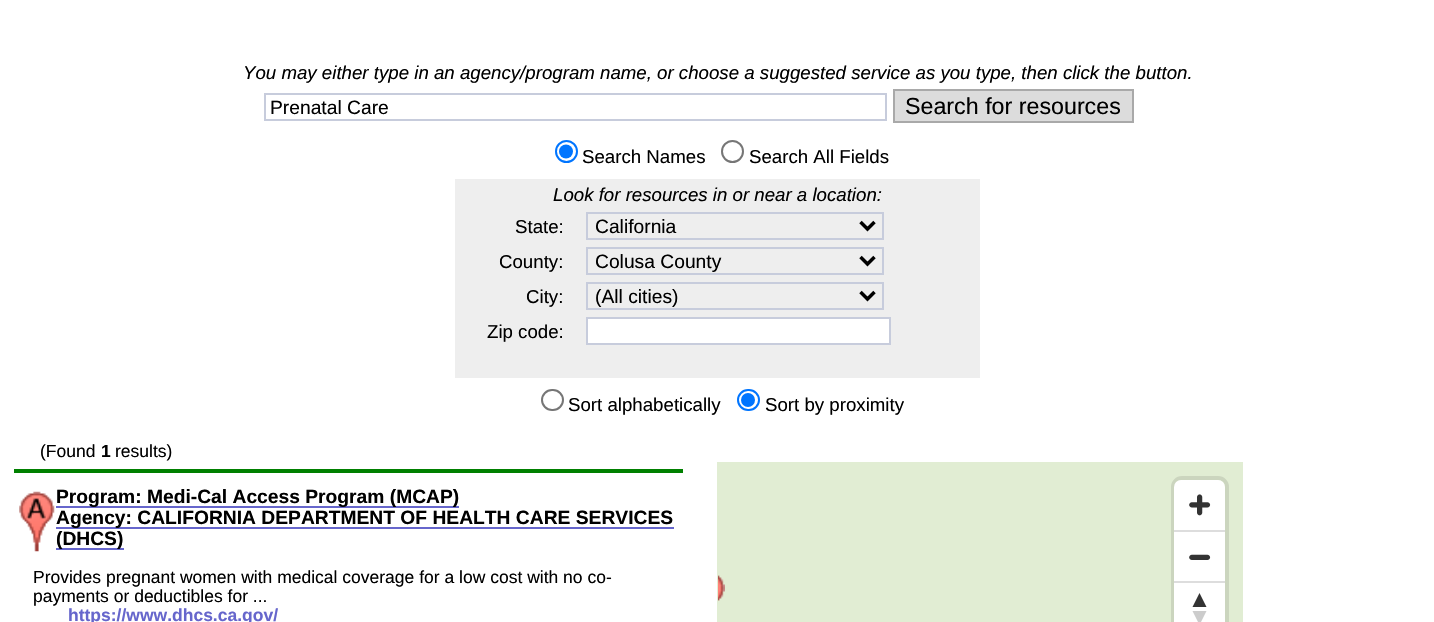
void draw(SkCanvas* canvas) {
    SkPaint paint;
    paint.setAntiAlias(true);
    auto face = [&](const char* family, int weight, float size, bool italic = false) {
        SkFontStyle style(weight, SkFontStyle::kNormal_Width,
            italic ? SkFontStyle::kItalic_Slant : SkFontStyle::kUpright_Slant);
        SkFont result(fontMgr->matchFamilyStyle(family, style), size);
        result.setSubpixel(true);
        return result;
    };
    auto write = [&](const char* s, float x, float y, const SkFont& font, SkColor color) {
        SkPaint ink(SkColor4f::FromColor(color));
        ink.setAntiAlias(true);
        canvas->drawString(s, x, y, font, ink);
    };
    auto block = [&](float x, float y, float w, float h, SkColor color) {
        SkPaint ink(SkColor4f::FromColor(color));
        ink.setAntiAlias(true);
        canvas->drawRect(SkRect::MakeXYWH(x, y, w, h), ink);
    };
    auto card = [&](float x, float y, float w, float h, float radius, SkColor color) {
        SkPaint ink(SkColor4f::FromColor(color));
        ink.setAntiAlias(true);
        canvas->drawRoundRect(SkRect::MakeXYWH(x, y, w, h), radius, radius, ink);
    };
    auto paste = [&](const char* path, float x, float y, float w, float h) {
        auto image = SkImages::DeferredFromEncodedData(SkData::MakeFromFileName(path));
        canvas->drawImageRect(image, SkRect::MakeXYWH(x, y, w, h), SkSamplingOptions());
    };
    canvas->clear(SK_ColorWHITE);
    auto kFont1 = face("Liberation Sans", 400, 18.67f, true);
    write("You may either type in an agency/program name, or choose a suggested service as you type, then click the button.", 243, 79, kFont1, SK_ColorBLACK);
    paint.setStyle(SkPaint::kStroke_Style);
    paint.setStrokeWidth(2);
    paint.setColor(SkColorSetRGB(199, 204, 220));
    canvas->drawRect(SkRect::MakeXYWH(265, 94, 621, 26), paint);
    auto kFont2 = face("Liberation Sans", 400, 19.25f);
    write("Prenatal Care", 270, 114, kFont2, SK_ColorBLACK);
    paint.setStyle(SkPaint::kFill_Style);
    paint.setColor(SkColorSetRGB(220, 220, 220));
    canvas->drawRect(SkRect::MakeXYWH(894, 90, 239, 32), paint);
    paint.setStyle(SkPaint::kStroke_Style);
    paint.setColor(SkColorSetRGB(169, 169, 169));
    canvas->drawRect(SkRect::MakeXYWH(894, 90, 239, 32), paint);
    auto kFont3 = face("Liberation Sans", 400, 23.25f);
    write("Search for resources", 905, 114, kFont3, SK_ColorBLACK);
    paint.setColor(SkColorSetRGB(0, 117, 255));
    canvas->drawCircle(566.5f, 151.5f, 10.5f, paint);
    paint.setStyle(SkPaint::kFill_Style);
    canvas->drawCircle(566, 151.5f, 7, paint);
    auto kFont4 = face("Liberation Sans", 400, 18.67f);
    write("Search Names", 582, 163, kFont4, SK_ColorBLACK);
    paint.setStyle(SkPaint::kStroke_Style);
    paint.setColor(SkColorSetRGB(118, 118, 118));
    canvas->drawCircle(732.5f, 151.5f, 10.5f, paint);
    write("Search All Fields", 749, 163, kFont4, SK_ColorBLACK);
    block(455, 179, 525, 199, SkColorSetRGB(238, 238, 238));
    write("Look for resources in or near a location:", 553, 201, kFont1, SK_ColorBLACK);
    write("State:", 515, 233, kFont4, SK_ColorBLACK);
    paint.setColor(SkColorSetRGB(199, 204, 220));
    canvas->drawRect(SkRect::MakeXYWH(587, 213, 296, 26), paint);
    paint.setStrokeWidth(3.5f);
    paint.setColor(SK_ColorBLACK);
    canvas->drawPath(SkPathBuilder().moveTo(860.5f, 222).lineTo(867.5f, 229).lineTo(874.5f, 222).detach(), paint);
    write("California", 595, 233, kFont2, SK_ColorBLACK);
    write("County:", 499, 268, kFont4, SK_ColorBLACK);
    paint.setStrokeWidth(2);
    paint.setColor(SkColorSetRGB(199, 204, 220));
    canvas->drawRect(SkRect::MakeXYWH(587, 248, 296, 26), paint);
    paint.setStrokeWidth(3.5f);
    paint.setColor(SK_ColorBLACK);
    canvas->drawPath(SkPathBuilder().moveTo(860.5f, 257).lineTo(867.5f, 264).lineTo(874.5f, 257).detach(), paint);
    write("Colusa County", 595, 268, kFont2, SK_ColorBLACK);
    write("City:", 526, 303, kFont4, SK_ColorBLACK);
    paint.setStrokeWidth(2);
    paint.setColor(SkColorSetRGB(199, 204, 220));
    canvas->drawRect(SkRect::MakeXYWH(587, 283, 296, 26), paint);
    paint.setStrokeWidth(3.5f);
    paint.setColor(SK_ColorBLACK);
    canvas->drawPath(SkPathBuilder().moveTo(860.5f, 292).lineTo(867.5f, 299).lineTo(874.5f, 292).detach(), paint);
    write("(All cities)", 595, 303, kFont2, SK_ColorBLACK);
    write("Zip code:", 487, 338, kFont4, SK_ColorBLACK);
    paint.setStyle(SkPaint::kFill_Style);
    paint.setColor(SK_ColorWHITE);
    canvas->drawRect(SkRect::MakeXYWH(587, 318, 303, 26), paint);
    paint.setStyle(SkPaint::kStroke_Style);
    paint.setStrokeWidth(2);
    paint.setColor(SkColorSetRGB(199, 204, 220));
    canvas->drawRect(SkRect::MakeXYWH(587, 318, 303, 26), paint);
    paint.setColor(SkColorSetRGB(118, 118, 118));
    canvas->drawRoundRect(SkRect::MakeXYWH(542, 390, 21, 20), 10, 10, paint);
    write("Sort alphabetically", 568, 411, kFont4, SK_ColorBLACK);
    paint.setColor(SkColorSetRGB(0, 117, 255));
    canvas->drawRoundRect(SkRect::MakeXYWH(738, 390, 21, 20), 10, 10, paint);
    paint.setStyle(SkPaint::kFill_Style);
    canvas->drawCircle(748, 400, 7, paint);
    write("Sort by proximity", 765, 411, kFont4, SK_ColorBLACK);
    block(14, 469, 669, 4, SkColorSetRGB(0, 128, 0));
    auto kFont5 = face("Liberation Sans", 400, 17.5f);
    write("(Found", 40, 457, kFont5, SK_ColorBLACK);
    auto kFont6 = face("Liberation Sans", 700, 17.5f);
    write("1", 101, 457, kFont6, SK_ColorBLACK);
    write("results)", 115, 457, kFont5, SK_ColorBLACK);
    paste("pic1.png", 19, 491, 36, 61);
    block(56, 506, 403, 2, SkColorSetRGB(102, 102, 204));
    auto kFont7 = face("Liberation Sans", 700, 19.25f);
    write("Program: Medi-Cal Access Program (MCAP)", 56, 503, kFont7, SK_ColorBLACK);
    block(56, 527, 618, 2, SkColorSetRGB(102, 102, 204));
    write("Agency: CALIFORNIA DEPARTMENT OF HEALTH CARE SERVICES", 56, 524, kFont7, SK_ColorBLACK);
    block(56, 548, 68, 2, SkColorSetRGB(102, 102, 204));
    write("(DHCS)", 56, 545, kFont7, SK_ColorBLACK);
    write("Provides pregnant women with medical coverage for a low cost with no co-", 33, 583, kFont5, SK_ColorBLACK);
    write("payments or deductibles for ...", 33, 602, kFont5, SK_ColorBLACK);
    write("https://www.dhcs.ca.gov/", 68, 621, kFont6, SkColorSetRGB(102, 102, 204));
    block(717, 462, 526, 160, SkColorSetRGB(225, 237, 211));
    paste("pic2.png", 718, 575, 7, 26);
    paint.setStyle(SkPaint::kStroke_Style);
    paint.setStrokeWidth(4);
    paint.setColor(SkColorSetRGB(203, 213, 190));
    canvas->drawRoundRect(SkRect::MakeXYWH(1173, 478, 54, 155), 9, 9, paint);
    card(1174, 480, 51, 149, 7, SK_ColorWHITE);
    paste("pic3.png", 1189, 494, 22, 22);
    block(1174, 530, 51, 2, SkColorSetRGB(221, 221, 221));
    paste("pic4.png", 1189, 554, 22, 6);
    block(1174, 581, 51, 2, SkColorSetRGB(221, 221, 221));
    paint.setStyle(SkPaint::kFill_Style);
    paint.setColor(SkColorSetRGB(51, 51, 51));
    canvas->drawPath(SkPathBuilder().moveTo(1192.5f, 607).lineTo(1199.5f, 593).lineTo(1206.5f, 607).close().detach(), paint);
    paint.setColor(SkColorSetRGB(204, 204, 204));
    canvas->drawPath(SkPathBuilder().moveTo(1192.5f, 611).lineTo(1199.5f, 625).lineTo(1206.5f, 611).close().detach(), paint);
}
